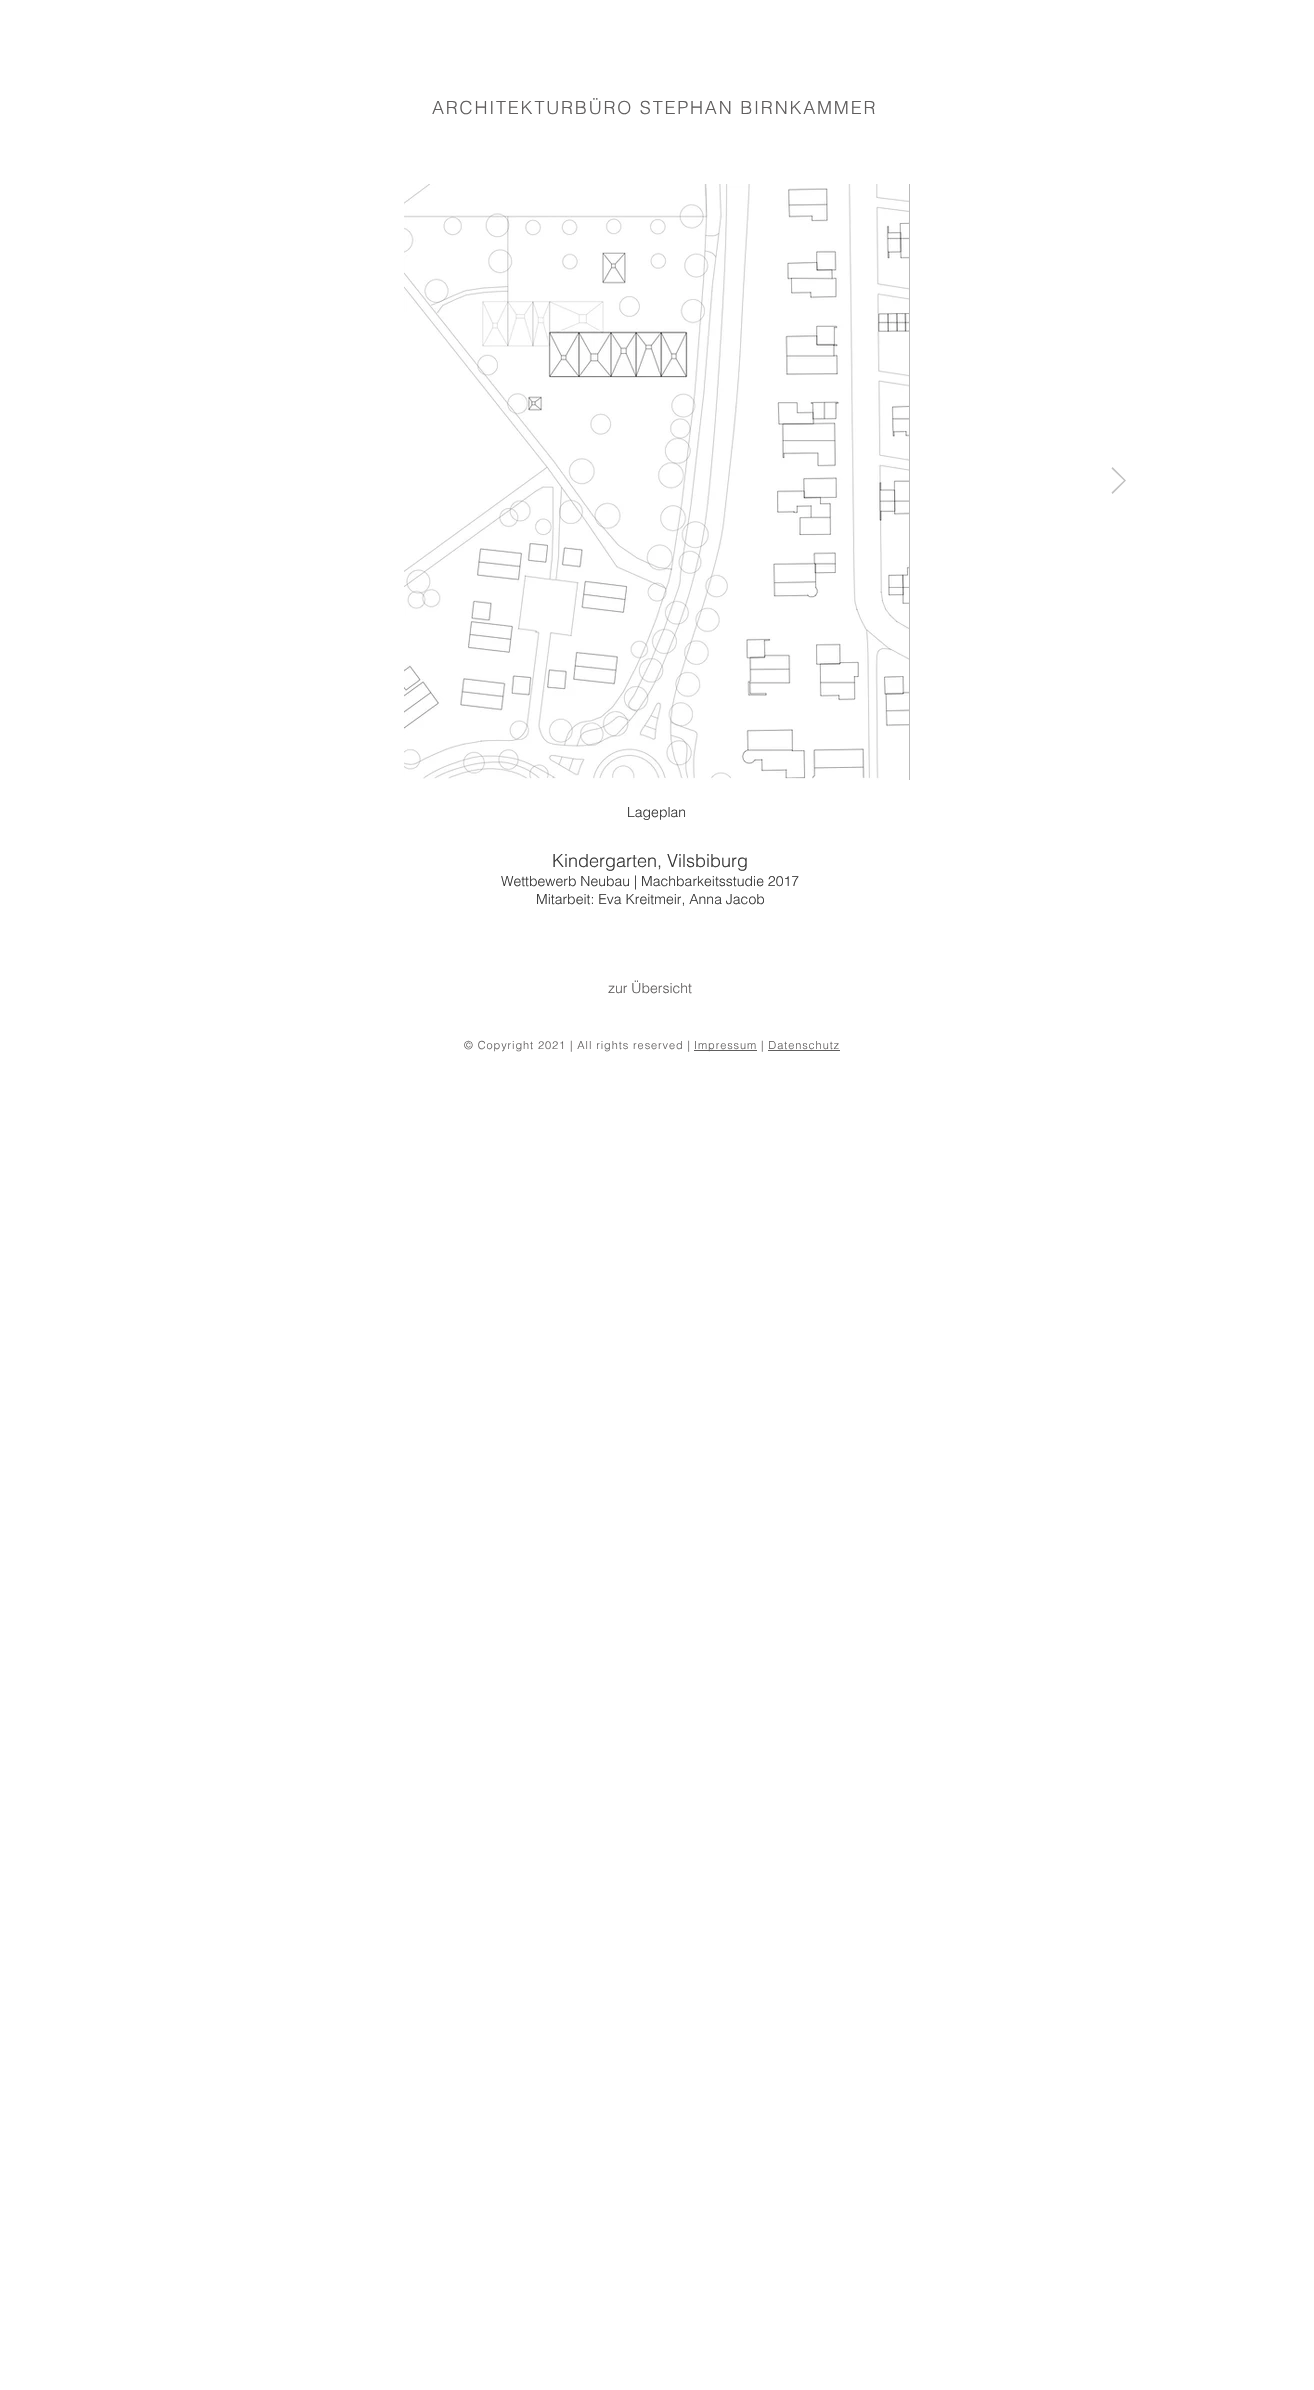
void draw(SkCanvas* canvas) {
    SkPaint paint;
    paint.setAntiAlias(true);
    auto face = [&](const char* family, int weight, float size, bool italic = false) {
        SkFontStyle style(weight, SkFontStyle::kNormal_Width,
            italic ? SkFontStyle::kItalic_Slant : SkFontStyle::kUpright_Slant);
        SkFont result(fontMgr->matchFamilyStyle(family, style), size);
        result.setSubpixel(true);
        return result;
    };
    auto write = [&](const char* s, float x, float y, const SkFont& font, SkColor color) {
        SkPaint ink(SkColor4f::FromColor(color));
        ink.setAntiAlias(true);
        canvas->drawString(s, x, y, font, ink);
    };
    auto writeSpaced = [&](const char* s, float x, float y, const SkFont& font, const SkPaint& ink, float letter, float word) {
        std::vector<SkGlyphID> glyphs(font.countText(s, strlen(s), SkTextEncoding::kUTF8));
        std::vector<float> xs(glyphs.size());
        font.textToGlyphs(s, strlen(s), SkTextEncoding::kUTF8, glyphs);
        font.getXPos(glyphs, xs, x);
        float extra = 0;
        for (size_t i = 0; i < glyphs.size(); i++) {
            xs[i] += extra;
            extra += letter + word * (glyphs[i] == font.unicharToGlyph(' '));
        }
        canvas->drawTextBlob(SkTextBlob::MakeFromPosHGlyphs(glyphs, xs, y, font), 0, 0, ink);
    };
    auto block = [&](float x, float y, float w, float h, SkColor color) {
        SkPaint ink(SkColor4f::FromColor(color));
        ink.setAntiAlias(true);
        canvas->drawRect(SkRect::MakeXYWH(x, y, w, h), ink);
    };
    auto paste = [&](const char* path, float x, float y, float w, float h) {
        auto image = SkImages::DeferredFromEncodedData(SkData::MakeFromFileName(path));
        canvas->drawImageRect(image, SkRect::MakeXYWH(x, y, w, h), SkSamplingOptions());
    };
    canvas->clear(SK_ColorWHITE);
    auto kFont1 = face("helvetica", 300, 18);
    paint.setColor(SkColorSetRGB(96, 94, 94));
    writeSpaced("ARCHITEKTURBÜRO STEPHAN BIRNKAMMER", 432, 114, kFont1, paint, 1.8f, 0);
    paint.setColor(SkColorSetRGB(193, 193, 193));
    canvas->drawPath(SkPathBuilder().moveTo(1111.5f, 468.5f).lineTo(1112.5f, 467).lineTo(1126, 480.5f).lineTo(1112.5f, 494).lineTo(1111.5f, 492.5f).lineTo(1124, 480.5f).close().detach(), paint);
    block(909, 184, 1, 596, SkColorSetRGB(186, 186, 186));
    paste("pic1.png", 404, 184, 505, 596);
    auto kFont2 = face("helvetica", 300, 14);
    write("Lageplan", 627, 817, kFont2, SkColorSetRGB(54, 54, 54));
    write("Kindergarten, Vilsbiburg", 552, 867, kFont1, SkColorSetRGB(54, 54, 54));
    write("Wettbewerb Neubau | Machbarkeitsstudie 2017", 501, 886, kFont2, SkColorSetRGB(54, 54, 54));
    write("Mitarbeit: Eva Kreitmeir, Anna Jacob", 536, 904, kFont2, SkColorSetRGB(54, 54, 54));
    write("zur Übersicht", 608, 993, kFont2, SkColorSetRGB(96, 94, 94));
    auto kFont3 = face("helvetica", 300, 11);
    paint.setColor(SkColorSetRGB(96, 94, 94));
    writeSpaced("© Copyright 2021 | All rights reserved |", 464, 1049, kFont3, paint, 0.9f, 0);
    block(694, 1050, 63, 1, SkColorSetRGB(96, 94, 94));
    writeSpaced("Impressum | Datenschutz", 694, 1049, kFont3, paint, 0.9f, 0);
    block(768, 1050, 72, 1, SkColorSetRGB(96, 94, 94));
}
